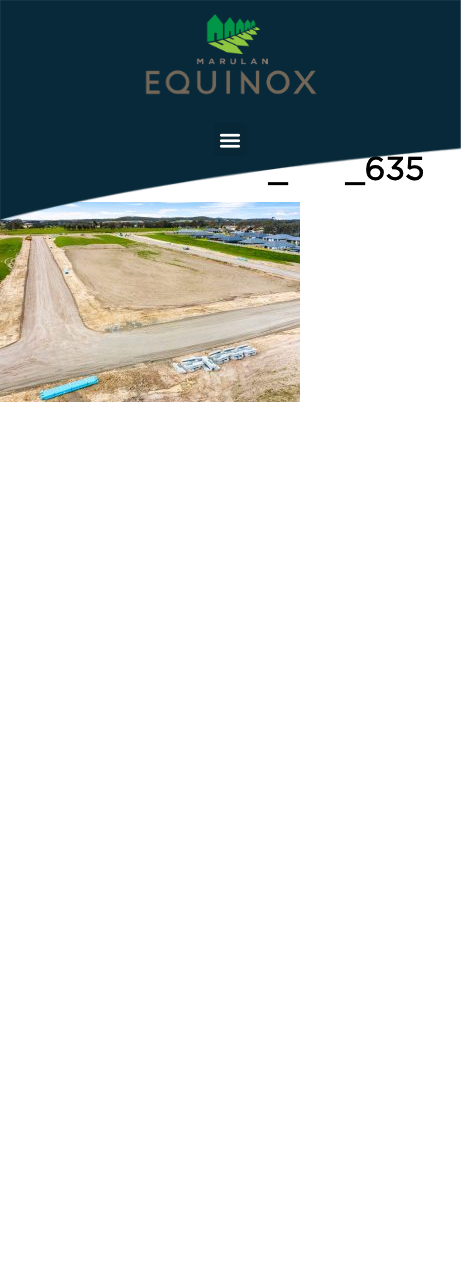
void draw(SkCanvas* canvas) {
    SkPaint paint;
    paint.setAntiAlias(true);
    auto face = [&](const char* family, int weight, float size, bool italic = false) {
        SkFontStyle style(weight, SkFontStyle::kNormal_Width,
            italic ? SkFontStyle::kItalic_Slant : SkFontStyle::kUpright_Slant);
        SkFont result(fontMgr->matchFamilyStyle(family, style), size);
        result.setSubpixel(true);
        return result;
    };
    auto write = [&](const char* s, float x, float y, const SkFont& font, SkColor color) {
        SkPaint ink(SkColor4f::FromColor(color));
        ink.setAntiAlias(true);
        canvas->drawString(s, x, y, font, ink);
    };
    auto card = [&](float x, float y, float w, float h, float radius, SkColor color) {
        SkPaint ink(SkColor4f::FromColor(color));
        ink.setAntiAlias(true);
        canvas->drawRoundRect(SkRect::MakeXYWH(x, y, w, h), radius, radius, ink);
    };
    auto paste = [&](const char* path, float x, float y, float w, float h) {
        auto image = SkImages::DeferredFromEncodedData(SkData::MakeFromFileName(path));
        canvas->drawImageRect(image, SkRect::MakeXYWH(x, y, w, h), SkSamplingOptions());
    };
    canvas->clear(SK_ColorWHITE);
    auto kFont1 = face("Gotham", 700, 32);
    write("_", 268, 180, kFont1, SK_ColorBLACK);
    write("_635", 345, 180, kFont1, SK_ColorBLACK);
    paste("pic4.png", 0, 202, 300, 200);
    paste("pic1.png", 0, 0, 461, 220);
    paste("pic2.png", 145, 14, 172, 81);
    card(214, 123, 33, 33, 3, SkColorSetRGB(8, 39, 54));
    paste("pic3.png", 219, 133, 22, 15);
}
